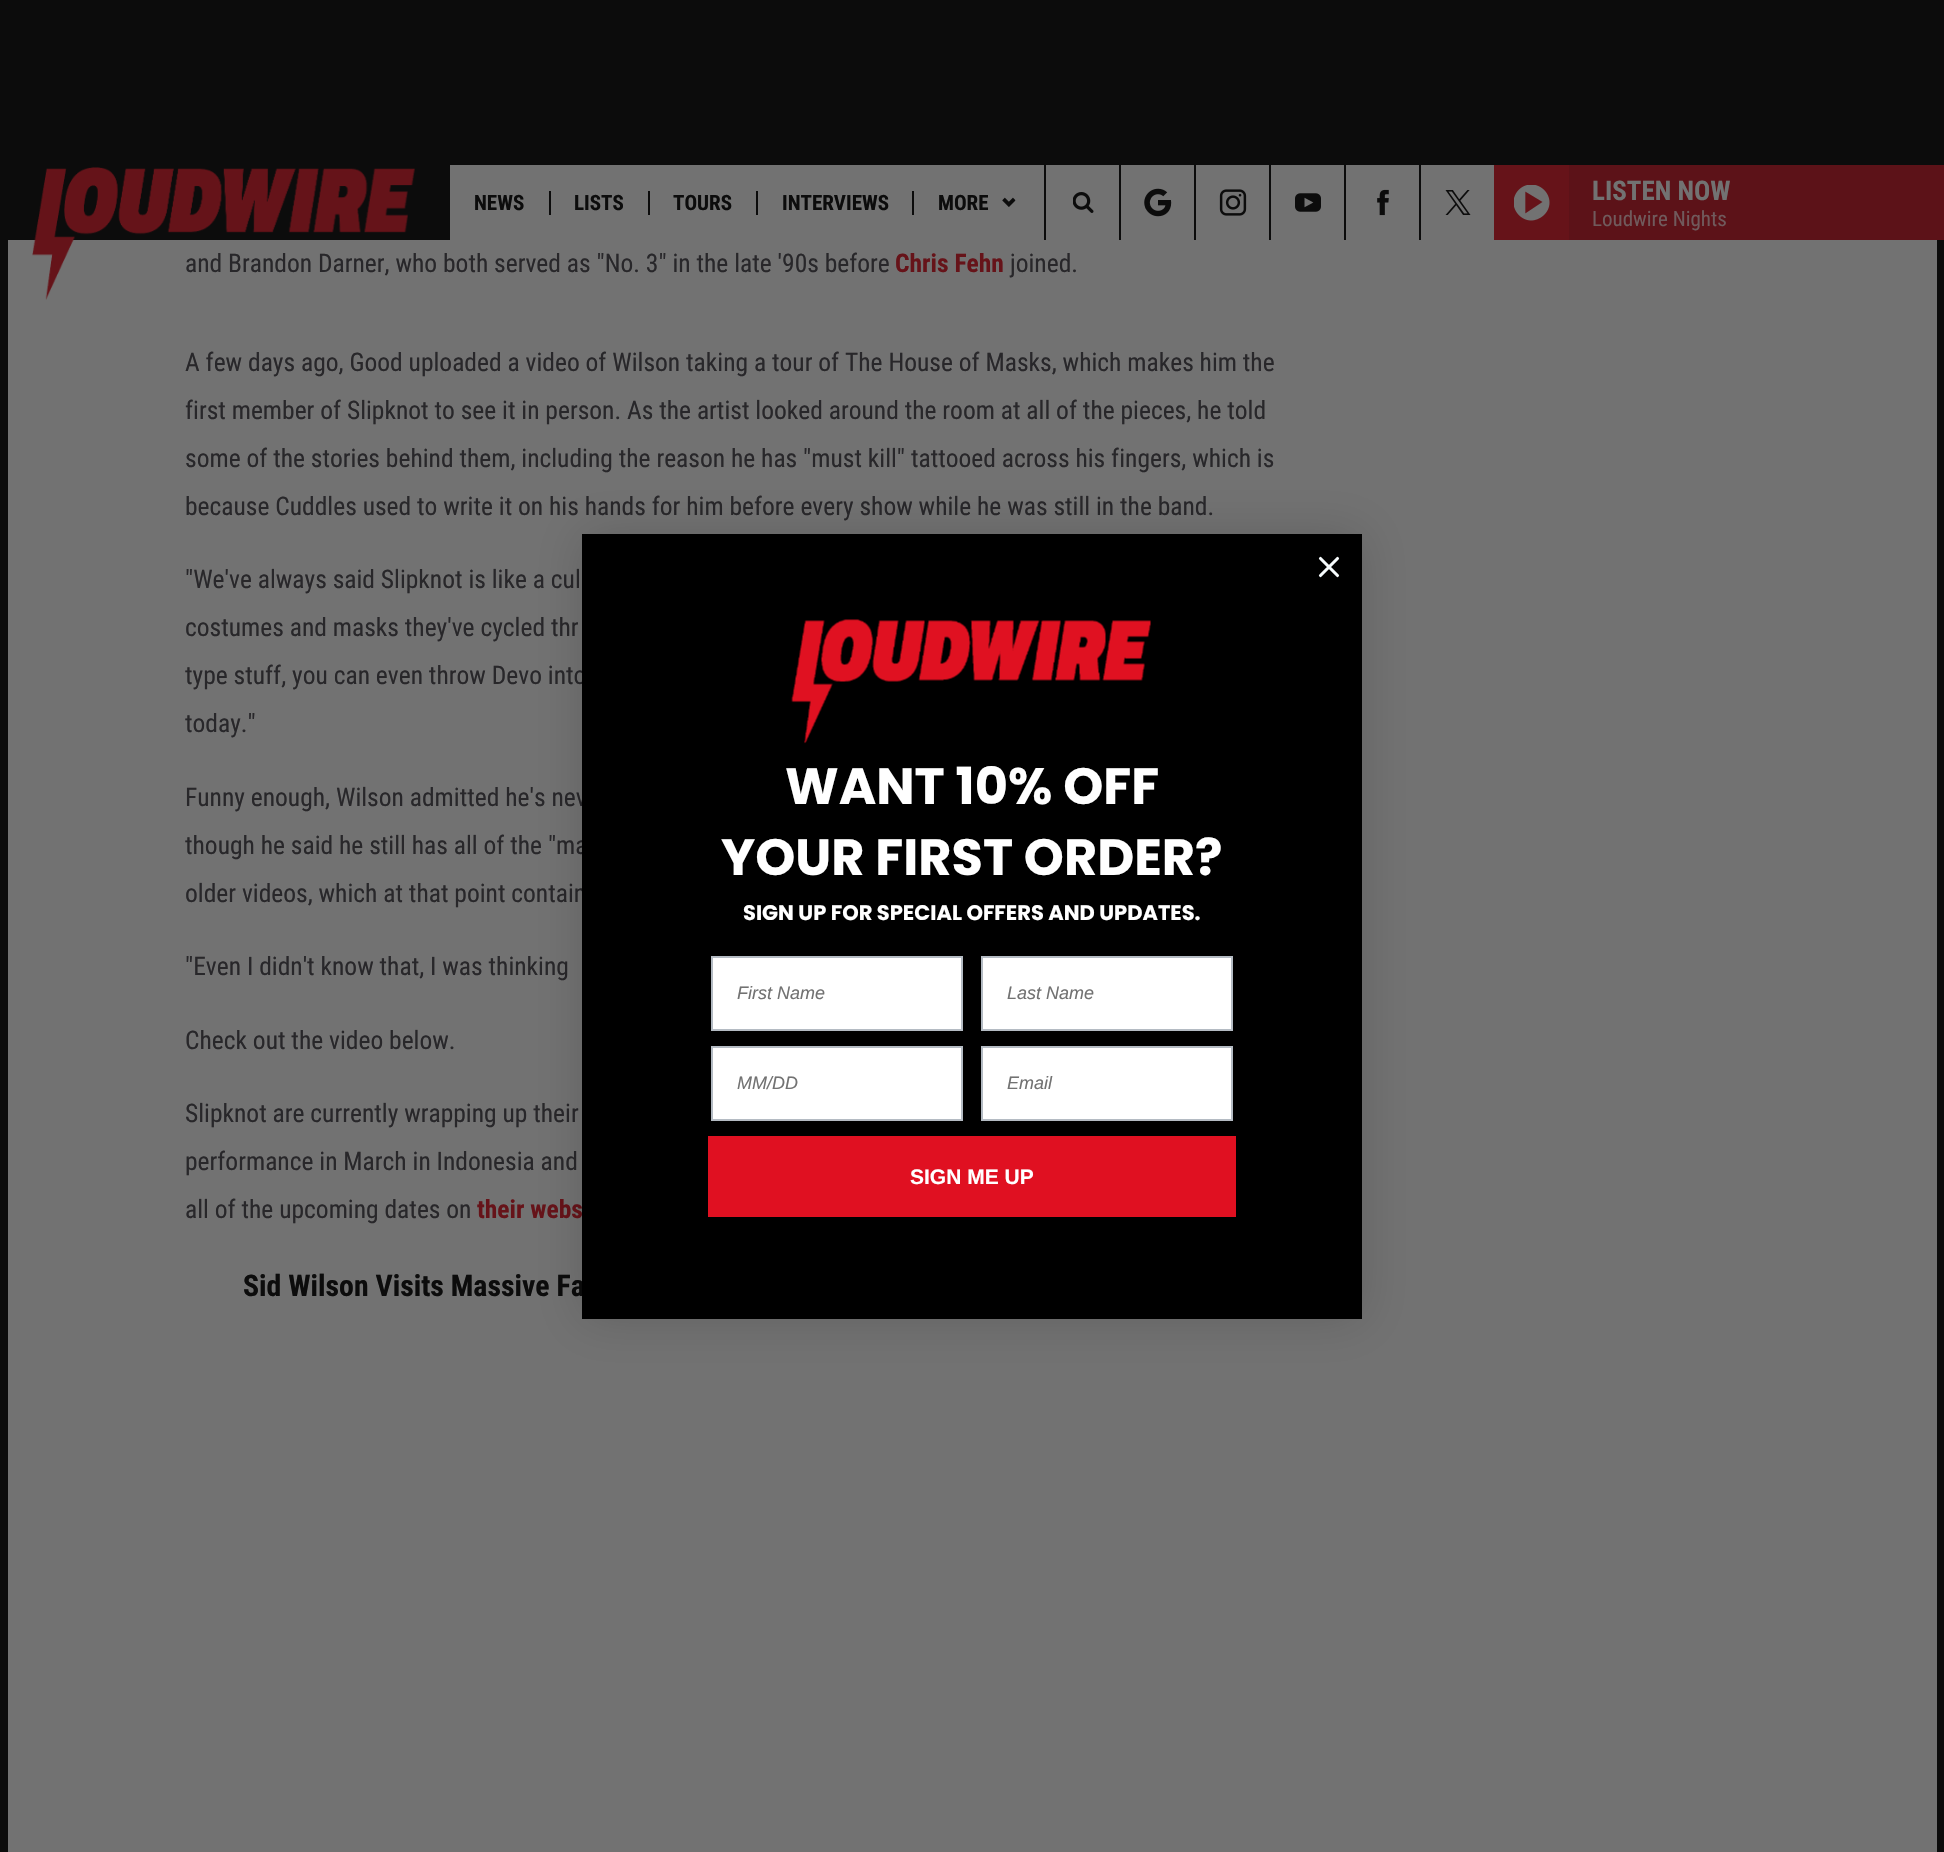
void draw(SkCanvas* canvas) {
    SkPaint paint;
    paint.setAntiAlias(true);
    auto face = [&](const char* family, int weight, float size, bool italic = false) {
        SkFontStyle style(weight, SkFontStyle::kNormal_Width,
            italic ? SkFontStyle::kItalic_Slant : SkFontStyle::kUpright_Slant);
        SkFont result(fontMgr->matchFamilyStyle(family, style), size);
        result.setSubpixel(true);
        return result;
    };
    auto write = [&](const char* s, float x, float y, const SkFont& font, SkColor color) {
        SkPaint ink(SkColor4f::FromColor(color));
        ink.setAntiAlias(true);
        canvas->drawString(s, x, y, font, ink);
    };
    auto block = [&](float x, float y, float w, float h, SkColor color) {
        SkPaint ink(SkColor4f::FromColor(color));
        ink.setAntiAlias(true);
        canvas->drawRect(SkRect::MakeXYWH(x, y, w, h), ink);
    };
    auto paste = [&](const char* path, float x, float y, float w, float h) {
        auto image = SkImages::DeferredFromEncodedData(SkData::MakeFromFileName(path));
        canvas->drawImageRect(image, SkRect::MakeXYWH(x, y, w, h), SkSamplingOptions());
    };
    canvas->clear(SkColorSetRGB(12, 12, 12));
    block(8, 240, 1929, 1612, SkColorSetRGB(114, 114, 114));
    auto kFont1 = face("Roboto Condensed", 400, 25.5f);
    write("and Brandon Darner, who both served as \"No. 3\" in the late '90s before", 185, 272, kFont1, SkColorSetRGB(40, 39, 42));
    paste("pic1.png", 32, 167, 383, 133);
    block(450, 165, 1044, 75, SkColorSetRGB(114, 114, 114));
    auto kFont2 = face("Roboto Condensed", 700, 21);
    write("NEWS", 474, 210, kFont2, SkColorSetRGB(12, 12, 12));
    block(549, 191, 2, 24, SkColorSetRGB(12, 12, 12));
    write("LISTS", 574, 210, kFont2, SkColorSetRGB(12, 12, 12));
    block(648, 191, 2, 24, SkColorSetRGB(12, 12, 12));
    write("TOURS", 673, 210, kFont2, SkColorSetRGB(12, 12, 12));
    block(756, 191, 2, 24, SkColorSetRGB(12, 12, 12));
    write("INTERVIEWS", 782, 210, kFont2, SkColorSetRGB(12, 12, 12));
    block(912, 191, 2, 24, SkColorSetRGB(12, 12, 12));
    write("MORE", 938, 210, kFont2, SkColorSetRGB(12, 12, 12));
    paste("pic2.png", 1002, 197, 14, 10);
    block(1044, 165, 2, 75, SkColorSetRGB(12, 12, 12));
    paste("pic3.png", 1073, 192, 21, 21);
    block(1119, 165, 2, 75, SkColorSetRGB(12, 12, 12));
    paste("pic4.png", 1144, 188, 28, 29);
    block(1194, 165, 2, 75, SkColorSetRGB(12, 12, 12));
    paste("pic5.png", 1219, 189, 28, 27);
    block(1269, 165, 2, 75, SkColorSetRGB(12, 12, 12));
    paste("pic6.png", 1295, 193, 26, 19);
    block(1344, 165, 2, 75, SkColorSetRGB(12, 12, 12));
    paste("pic7.png", 1377, 189, 12, 27);
    block(1419, 165, 2, 75, SkColorSetRGB(12, 12, 12));
    paste("pic8.png", 1445, 190, 26, 25);
    block(1494, 165, 75, 75, SkColorSetRGB(102, 19, 25));
    paste("pic9.png", 1514, 185, 36, 36);
    block(1569, 165, 375, 75, SkColorSetRGB(92, 18, 24));
    auto kFont3 = face("Roboto Condensed", 700, 27);
    write("LISTEN NOW", 1592, 200, kFont3, SkColorSetRGB(114, 114, 114));
    auto kFont4 = face("Roboto Condensed", 400, 21);
    write("Loudwire Nights", 1592, 226, kFont4, SkColorSetRGB(112, 90, 92));
    auto kFont5 = face("Roboto Condensed", 700, 25.5f);
    write("Chris Fehn", 895, 272, kFont5, SkColorSetRGB(102, 19, 25));
    write("joined.", 1010, 272, kFont1, SkColorSetRGB(40, 39, 42));
    write("A few days ago, Good uploaded a video of Wilson taking a tour of The House of Masks, which makes him the", 185, 371, kFont1, SkColorSetRGB(40, 39, 42));
    write("first member of Slipknot to see it in person. As the artist looked around the room at all of the pieces, he told", 185, 419, kFont1, SkColorSetRGB(40, 39, 42));
    write("some of the stories behind them, including the reason he has \"must kill\" tattooed across his fingers, which is", 185, 467, kFont1, SkColorSetRGB(40, 39, 42));
    write("because Cuddles used to write it on his hands for him before every show while he was still in the band.", 185, 515, kFont1, SkColorSetRGB(40, 39, 42));
    write("\"We've always said Slipknot is like a cul", 185, 588, kFont1, SkColorSetRGB(40, 39, 42));
    write("costumes and masks they've cycled thr", 185, 636, kFont1, SkColorSetRGB(40, 39, 42));
    write("type stuff, you can even throw Devo into", 185, 684, kFont1, SkColorSetRGB(40, 39, 42));
    write("today.\"", 185, 732, kFont1, SkColorSetRGB(40, 39, 42));
    write("Funny enough, Wilson admitted he's nev", 185, 806, kFont1, SkColorSetRGB(40, 39, 42));
    write("though he said he still has all of the \"ma", 185, 854, kFont1, SkColorSetRGB(40, 39, 42));
    write("older videos, which at that point contain", 185, 902, kFont1, SkColorSetRGB(40, 39, 42));
    write("\"Even I didn't know that, I was thinking", 185, 975, kFont1, SkColorSetRGB(40, 39, 42));
    write("Check out the video below.", 185, 1049, kFont1, SkColorSetRGB(40, 39, 42));
    write("Slipknot are currently wrapping up their", 185, 1122, kFont1, SkColorSetRGB(40, 39, 42));
    write("performance in March in Indonesia and", 185, 1170, kFont1, SkColorSetRGB(40, 39, 42));
    write("all of the upcoming dates on", 185, 1218, kFont1, SkColorSetRGB(40, 39, 42));
    write("their webs", 477, 1218, kFont5, SkColorSetRGB(102, 19, 25));
    auto kFont6 = face("Roboto Condensed", 700, 29.8f);
    write("Sid Wilson Visits Massive Fa", 243, 1296, kFont6, SkColorSetRGB(12, 12, 12));
    paint.setColor(SkColorSetARGB(38, 0, 0, 0));
    paint.setMaskFilter(SkMaskFilter::MakeBlur(kNormal_SkBlurStyle, 22.5f));
    canvas->drawRect(SkRect::MakeXYWH(582, 534, 780, 785), paint);
    paint.setMaskFilter(nullptr);
    block(582, 534, 780, 785, SK_ColorBLACK);
    paint.setStyle(SkPaint::kStroke_Style);
    paint.setStrokeWidth(3.1f);
    paint.setStrokeCap(SkPaint::kRound_Cap);
    paint.setStrokeJoin(SkPaint::kRound_Join);
    paint.setColor(SkColorSetRGB(247, 252, 254));
    canvas->drawPath(SkPathBuilder().moveTo(1320.5f, 558.5f).lineTo(1337.5f, 575.5f).moveTo(1320.5f, 575.5f).lineTo(1337.5f, 558.5f).close().detach(), paint);
    paste("pic10.png", 791, 619, 360, 125);
    auto kFont7 = face("Poppins", 700, 51);
    write("WANT 10% OFF", 785, 804, kFont7, SK_ColorWHITE);
    write("YOUR FIRST ORDER?", 721, 875, kFont7, SK_ColorWHITE);
    auto kFont8 = face("Poppins", 700, 21);
    write("SIGN UP FOR SPECIAL OFFERS AND UPDATES.", 743, 920, kFont8, SK_ColorWHITE);
    paint.setStyle(SkPaint::kFill_Style);
    paint.setColor(SK_ColorWHITE);
    canvas->drawRect(SkRect::MakeXYWH(712, 957, 250, 73), paint);
    paint.setStyle(SkPaint::kStroke_Style);
    paint.setStrokeWidth(2);
    paint.setStrokeCap(SkPaint::kButt_Cap);
    paint.setStrokeJoin(SkPaint::kMiter_Join);
    paint.setColor(SkColorSetRGB(180, 187, 195));
    canvas->drawRect(SkRect::MakeXYWH(712, 957, 250, 73), paint);
    auto kFont9 = face("Liberation Sans", 400, 18, true);
    write("First Name", 737, 999, kFont9, SkColorSetRGB(114, 114, 114));
    paint.setStyle(SkPaint::kFill_Style);
    paint.setColor(SK_ColorWHITE);
    canvas->drawRect(SkRect::MakeXYWH(982, 957, 250, 73), paint);
    paint.setStyle(SkPaint::kStroke_Style);
    paint.setColor(SkColorSetRGB(180, 187, 195));
    canvas->drawRect(SkRect::MakeXYWH(982, 957, 250, 73), paint);
    write("Last Name", 1007, 999, kFont9, SkColorSetRGB(114, 114, 114));
    paint.setStyle(SkPaint::kFill_Style);
    paint.setColor(SK_ColorWHITE);
    canvas->drawRect(SkRect::MakeXYWH(712, 1047, 250, 73), paint);
    paint.setStyle(SkPaint::kStroke_Style);
    paint.setColor(SkColorSetRGB(180, 187, 195));
    canvas->drawRect(SkRect::MakeXYWH(712, 1047, 250, 73), paint);
    write("MM/DD", 737, 1089, kFont9, SkColorSetRGB(114, 114, 114));
    paint.setStyle(SkPaint::kFill_Style);
    paint.setColor(SK_ColorWHITE);
    canvas->drawRect(SkRect::MakeXYWH(982, 1047, 250, 73), paint);
    paint.setStyle(SkPaint::kStroke_Style);
    paint.setColor(SkColorSetRGB(180, 187, 195));
    canvas->drawRect(SkRect::MakeXYWH(982, 1047, 250, 73), paint);
    write("Email", 1007, 1089, kFont9, SkColorSetRGB(114, 114, 114));
    block(708, 1136, 528, 81, SkColorSetRGB(224, 16, 33));
    auto kFont10 = face("Liberation Sans", 700, 21);
    write("SIGN ME UP", 910, 1184, kFont10, SK_ColorWHITE);
}
